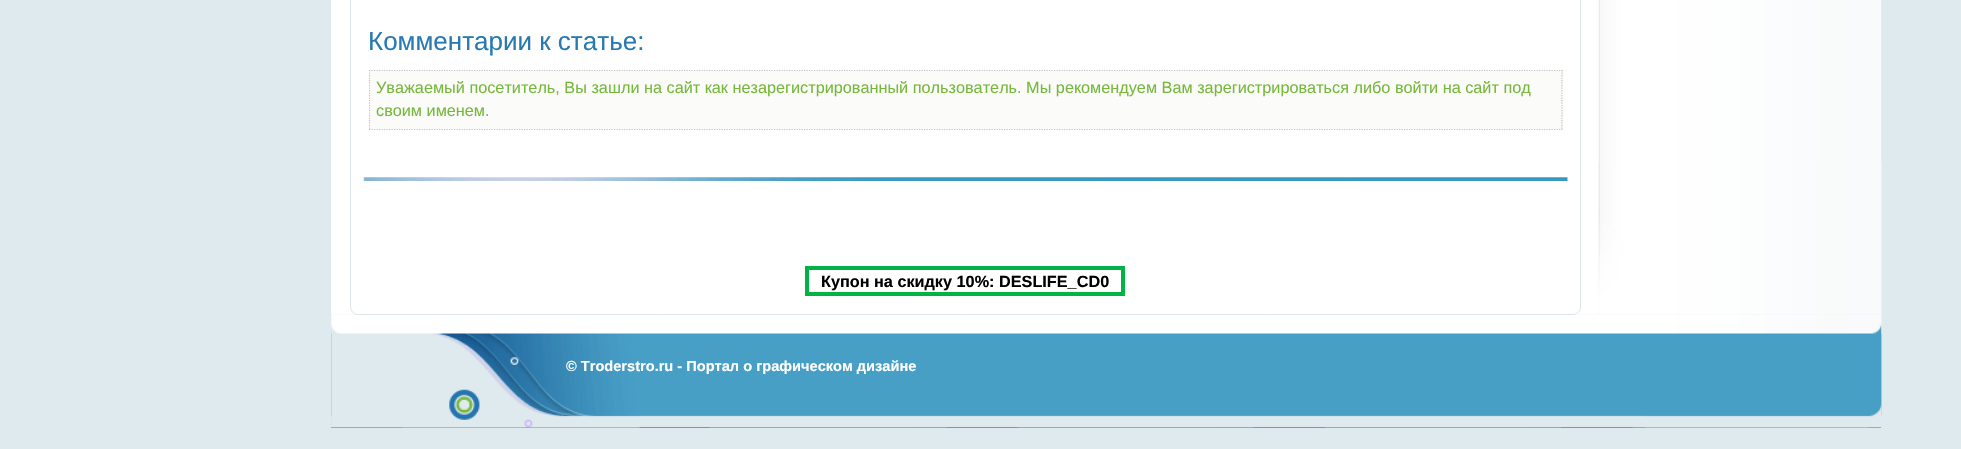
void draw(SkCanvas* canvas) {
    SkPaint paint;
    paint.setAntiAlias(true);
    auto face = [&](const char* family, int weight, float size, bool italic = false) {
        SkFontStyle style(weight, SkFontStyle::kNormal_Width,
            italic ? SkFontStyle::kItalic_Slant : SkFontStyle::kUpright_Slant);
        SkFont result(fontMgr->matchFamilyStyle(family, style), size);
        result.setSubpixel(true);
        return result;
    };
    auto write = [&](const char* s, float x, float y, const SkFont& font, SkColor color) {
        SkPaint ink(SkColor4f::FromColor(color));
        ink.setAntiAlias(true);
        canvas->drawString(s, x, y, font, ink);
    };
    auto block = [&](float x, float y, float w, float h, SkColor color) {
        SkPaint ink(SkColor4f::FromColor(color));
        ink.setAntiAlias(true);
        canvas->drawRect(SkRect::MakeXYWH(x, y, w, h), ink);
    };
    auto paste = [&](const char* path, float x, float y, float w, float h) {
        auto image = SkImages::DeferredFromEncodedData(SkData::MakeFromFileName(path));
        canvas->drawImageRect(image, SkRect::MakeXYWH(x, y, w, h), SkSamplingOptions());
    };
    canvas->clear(SkColorSetRGB(223, 234, 239));
    block(331, 0, 1550, 315, SK_ColorWHITE);
    paste("pic1.png", 1598, 0, 284, 315);
    paste("pic2.png", 1598, 163, 284, 152);
    block(331, 315, 1550, 113, SkColorSetRGB(72, 159, 198));
    paste("pic4.png", 331, 314, 1551, 114);
    paint.setStyle(SkPaint::kStroke_Style);
    paint.setStrokeWidth(1);
    paint.setColor(SkColorSetRGB(222, 228, 232));
    canvas->drawRoundRect(SkRect::MakeXYWH(350.5f, -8.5f, 1230, 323), 7.5f, 7.5f, paint);
    auto kFont1 = face("Liberation Sans", 400, 26);
    write("Комментарии к статье:", 368, 50, kFont1, SkColorSetRGB(40, 121, 178));
    block(369, 70, 1194, 60, SkColorSetRGB(251, 251, 250));
    paint.setStrokeWidth(1.2f);
    paint.setColor(SkColorSetRGB(194, 194, 190));
    paint.setPathEffect(SkDashPathEffect::Make({{1.25f, 1.25f}}, 0));
    canvas->drawPath(SkPathBuilder().moveTo(369, 70.5f).lineTo(1562.5f, 70.5f).detach(), paint);
    paint.setPathEffect(nullptr);
    paint.setPathEffect(SkDashPathEffect::Make({{1.25f, 1.25f}}, 0));
    canvas->drawPath(SkPathBuilder().moveTo(1562, 70).lineTo(1562, 130).detach(), paint);
    paint.setPathEffect(nullptr);
    canvas->save();
    canvas->clipRect(SkRect::MakeXYWH(369, 26, 1194, 104));
    paint.setPathEffect(SkDashPathEffect::Make({{1.25f, 1.25f}}, 0));
    canvas->drawPath(SkPathBuilder().moveTo(369, 129.5f).lineTo(1562.5f, 129.5f).detach(), paint);
    paint.setPathEffect(nullptr);
    paint.setPathEffect(SkDashPathEffect::Make({{1.25f, 1.25f}}, 0));
    canvas->drawPath(SkPathBuilder().moveTo(369.5f, 70).lineTo(369.5f, 130).detach(), paint);
    paint.setPathEffect(nullptr);
    canvas->restore();
    auto kFont2 = face("Liberation Sans", 400, 16.25f);
    write("Уважаемый посетитель, Вы зашли на сайт как незарегистрированный пользователь. Мы рекомендуем Вам зарегистрироваться либо войти на сайт под", 376, 93, kFont2, SkColorSetRGB(118, 184, 60));
    write("своим именем.", 376, 116, kFont2, SkColorSetRGB(118, 184, 60));
    paste("pic3.png", 363, 177, 1205, 4);
    paint.setStrokeWidth(4);
    paint.setColor(SkColorSetRGB(0, 179, 68));
    canvas->drawRect(SkRect::MakeXYWH(807, 268, 316, 26), paint);
    auto kFont3 = face("Liberation Sans", 700, 16.25f);
    write("Купон на скидку 10%: DESLIFE_CD0", 821, 287, kFont3, SK_ColorBLACK);
    paste("pic5.png", 331, 315, 309, 113);
    paste("pic6.png", 1645, 314, 237, 114);
    auto kFont4 = face("Liberation Sans", 700, 14.6f);
    write("© Troderstro.ru - Портал о графическом дизайне", 566, 371, kFont4, SK_ColorWHITE);
}
